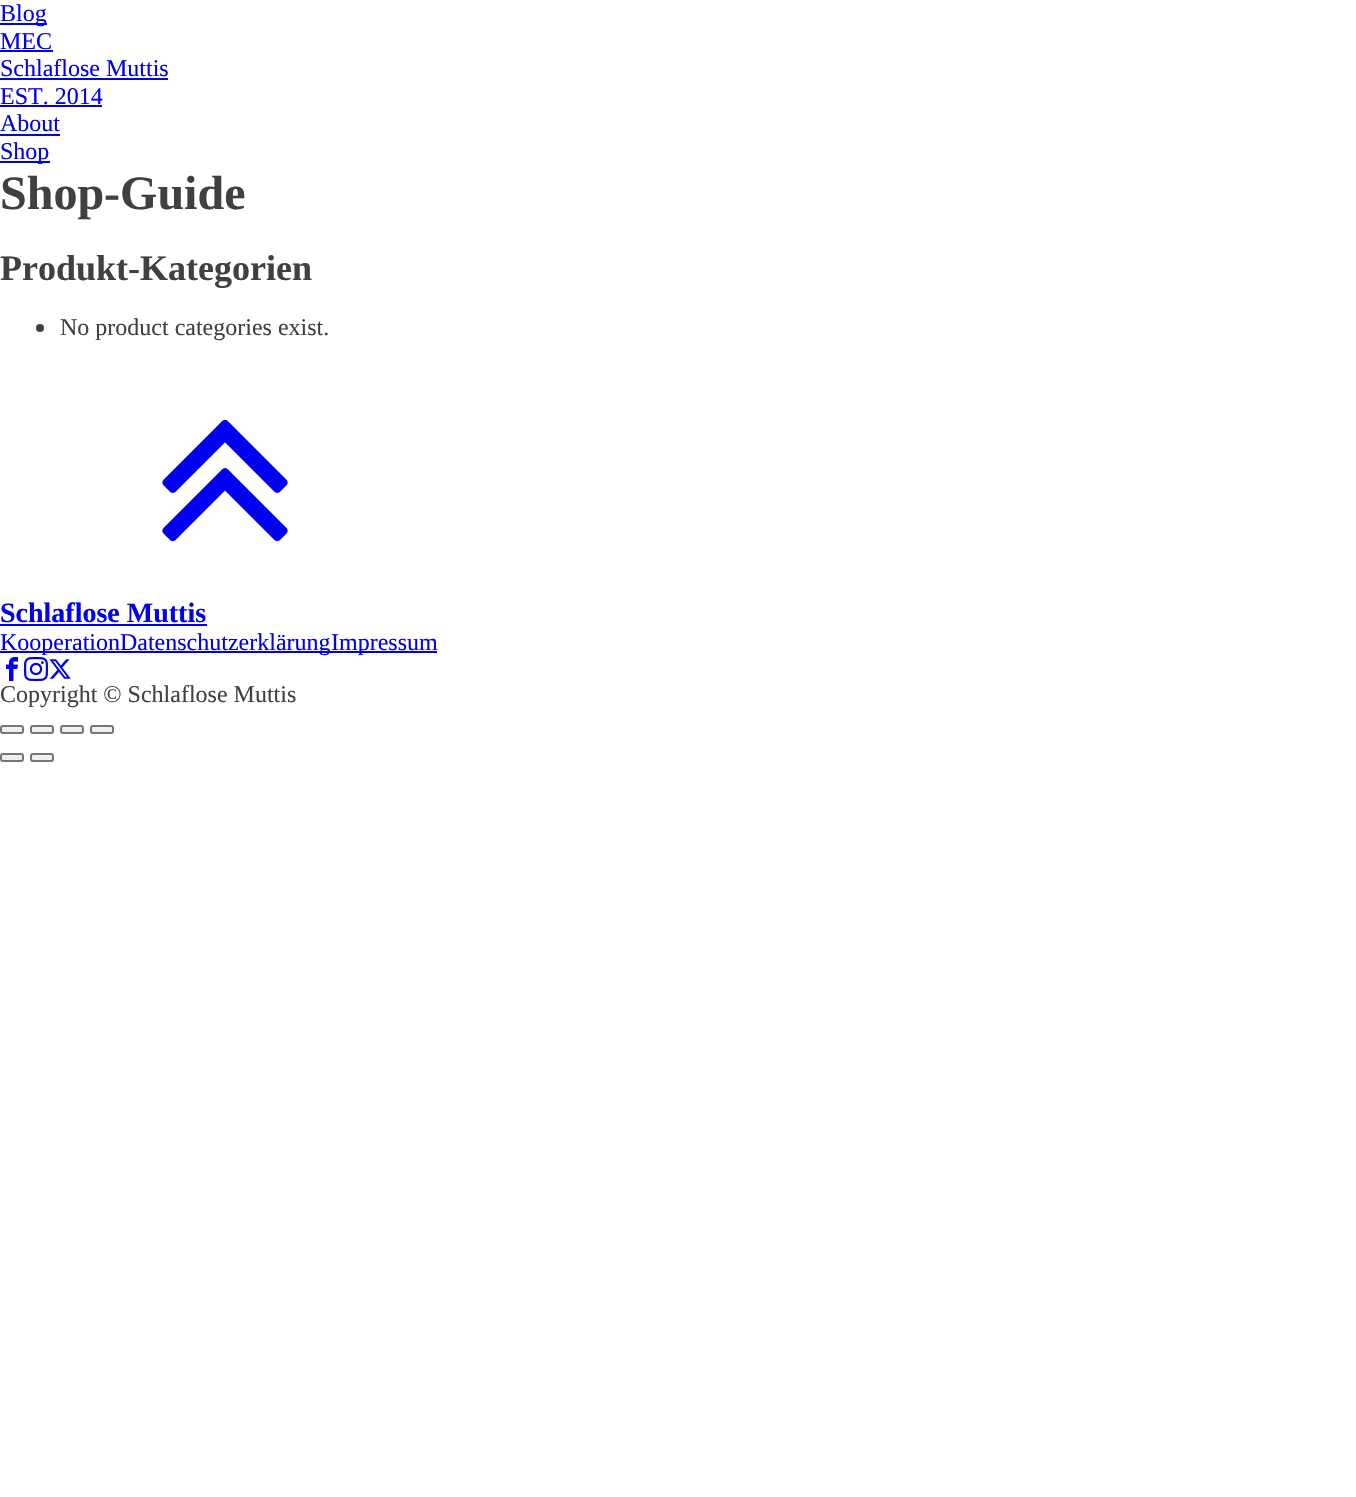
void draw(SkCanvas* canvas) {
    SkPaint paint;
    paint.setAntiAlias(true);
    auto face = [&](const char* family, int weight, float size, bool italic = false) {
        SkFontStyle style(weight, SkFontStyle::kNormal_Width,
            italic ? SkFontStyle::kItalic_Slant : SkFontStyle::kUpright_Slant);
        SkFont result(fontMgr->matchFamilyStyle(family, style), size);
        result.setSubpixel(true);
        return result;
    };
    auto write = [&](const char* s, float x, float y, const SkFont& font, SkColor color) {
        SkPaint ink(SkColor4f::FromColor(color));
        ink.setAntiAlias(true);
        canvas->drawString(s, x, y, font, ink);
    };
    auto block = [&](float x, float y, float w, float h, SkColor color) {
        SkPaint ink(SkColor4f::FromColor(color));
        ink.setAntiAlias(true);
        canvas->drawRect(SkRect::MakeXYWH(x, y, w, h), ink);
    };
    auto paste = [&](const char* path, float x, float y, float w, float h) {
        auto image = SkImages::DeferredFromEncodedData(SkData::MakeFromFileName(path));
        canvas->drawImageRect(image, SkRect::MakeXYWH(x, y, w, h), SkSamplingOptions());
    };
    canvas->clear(SK_ColorWHITE);
    block(0, 23, 47, 2, SkColorSetRGB(0, 0, 238));
    auto kFont1 = face("Liberation Serif", 400, 24);
    write("Blog", 0, 21, kFont1, SkColorSetRGB(0, 0, 238));
    write("MEC", 0, 49, kFont1, SkColorSetRGB(0, 0, 238));
    block(0, 50, 53, 2, SkColorSetRGB(0, 0, 238));
    write("Schlaflose Muttis", 0, 76, kFont1, SkColorSetRGB(0, 0, 238));
    block(0, 78, 168, 2, SkColorSetRGB(0, 0, 238));
    write("EST. 2014", 0, 104, kFont1, SkColorSetRGB(0, 0, 238));
    block(0, 105, 102, 2, SkColorSetRGB(0, 0, 238));
    write("About", 0, 131, kFont1, SkColorSetRGB(0, 0, 238));
    block(0, 134, 60, 2, SkColorSetRGB(0, 0, 238));
    block(0, 161, 50, 2, SkColorSetRGB(0, 0, 238));
    write("Shop", 0, 159, kFont1, SkColorSetRGB(0, 0, 238));
    auto kFont2 = face("Liberation Serif", 700, 48);
    write("Shop-Guide", 0, 209, kFont2, SkColorSetRGB(64, 64, 64));
    auto kFont3 = face("Liberation Serif", 700, 36);
    write("Produkt-Kategorien", 0, 280, kFont3, SkColorSetRGB(64, 64, 64));
    paint.setColor(SkColorSetRGB(64, 64, 64));
    canvas->drawCircle(40, 328, 4, paint);
    write("No product categories exist.", 60, 335, kFont1, SkColorSetRGB(64, 64, 64));
    paste("pic1.png", 162, 419, 126, 123);
    auto kFont4 = face("Liberation Serif", 700, 28);
    write("Schlaflose Muttis", 0, 622, kFont4, SkColorSetRGB(0, 0, 238));
    block(0, 624, 207, 2, SkColorSetRGB(0, 0, 238));
    block(0, 651, 330, 2, SkColorSetRGB(0, 0, 238));
    write("KooperationDatenschutzerklärung", 0, 650, kFont1, SkColorSetRGB(0, 0, 238));
    block(330, 651, 107, 2, SkColorSetRGB(0, 0, 238));
    write("Impressum", 331, 650, kFont1, SkColorSetRGB(0, 0, 238));
    paste("pic2.png", 6, 657, 12, 24);
    paste("pic3.png", 24, 657, 24, 24);
    paste("pic4.png", 49, 659, 22, 20);
    write("Copyright © Schlaflose Muttis", 0, 702, kFont1, SkColorSetRGB(64, 64, 64));
    paint.setColor(SkColorSetRGB(239, 239, 239));
    canvas->drawRoundRect(SkRect::MakeXYWH(1, 726, 22, 7), 2, 2, paint);
    paint.setStyle(SkPaint::kStroke_Style);
    paint.setStrokeWidth(2);
    paint.setColor(SkColorSetRGB(118, 118, 118));
    canvas->drawRoundRect(SkRect::MakeXYWH(1, 726, 22, 7), 2, 2, paint);
    paint.setStyle(SkPaint::kFill_Style);
    paint.setColor(SkColorSetRGB(239, 239, 239));
    canvas->drawRoundRect(SkRect::MakeXYWH(31, 726, 22, 7), 2, 2, paint);
    paint.setStyle(SkPaint::kStroke_Style);
    paint.setColor(SkColorSetRGB(118, 118, 118));
    canvas->drawRoundRect(SkRect::MakeXYWH(31, 726, 22, 7), 2, 2, paint);
    paint.setStyle(SkPaint::kFill_Style);
    paint.setColor(SkColorSetRGB(239, 239, 239));
    canvas->drawRoundRect(SkRect::MakeXYWH(61, 726, 22, 7), 2, 2, paint);
    paint.setStyle(SkPaint::kStroke_Style);
    paint.setColor(SkColorSetRGB(118, 118, 118));
    canvas->drawRoundRect(SkRect::MakeXYWH(61, 726, 22, 7), 2, 2, paint);
    paint.setStyle(SkPaint::kFill_Style);
    paint.setColor(SkColorSetRGB(239, 239, 239));
    canvas->drawRoundRect(SkRect::MakeXYWH(91, 726, 22, 7), 2, 2, paint);
    paint.setStyle(SkPaint::kStroke_Style);
    paint.setColor(SkColorSetRGB(118, 118, 118));
    canvas->drawRoundRect(SkRect::MakeXYWH(91, 726, 22, 7), 2, 2, paint);
    paint.setStyle(SkPaint::kFill_Style);
    paint.setColor(SkColorSetRGB(239, 239, 239));
    canvas->drawRoundRect(SkRect::MakeXYWH(1, 754, 22, 7), 2, 2, paint);
    paint.setStyle(SkPaint::kStroke_Style);
    paint.setColor(SkColorSetRGB(118, 118, 118));
    canvas->drawRoundRect(SkRect::MakeXYWH(1, 754, 22, 7), 2, 2, paint);
    paint.setStyle(SkPaint::kFill_Style);
    paint.setColor(SkColorSetRGB(239, 239, 239));
    canvas->drawRoundRect(SkRect::MakeXYWH(31, 754, 22, 7), 2, 2, paint);
    paint.setStyle(SkPaint::kStroke_Style);
    paint.setColor(SkColorSetRGB(118, 118, 118));
    canvas->drawRoundRect(SkRect::MakeXYWH(31, 754, 22, 7), 2, 2, paint);
}
